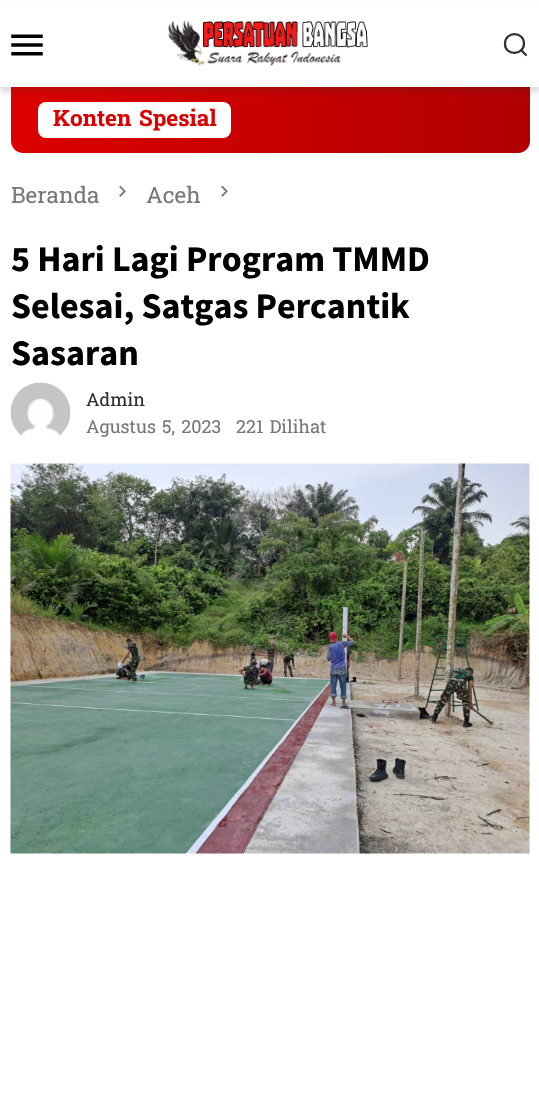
void draw(SkCanvas* canvas) {
    SkPaint paint;
    paint.setAntiAlias(true);
    auto face = [&](const char* family, int weight, float size, bool italic = false) {
        SkFontStyle style(weight, SkFontStyle::kNormal_Width,
            italic ? SkFontStyle::kItalic_Slant : SkFontStyle::kUpright_Slant);
        SkFont result(fontMgr->matchFamilyStyle(family, style), size);
        result.setSubpixel(true);
        return result;
    };
    auto write = [&](const char* s, float x, float y, const SkFont& font, SkColor color) {
        SkPaint ink(SkColor4f::FromColor(color));
        ink.setAntiAlias(true);
        canvas->drawString(s, x, y, font, ink);
    };
    auto block = [&](float x, float y, float w, float h, SkColor color) {
        SkPaint ink(SkColor4f::FromColor(color));
        ink.setAntiAlias(true);
        canvas->drawRect(SkRect::MakeXYWH(x, y, w, h), ink);
    };
    auto card = [&](float x, float y, float w, float h, float radius, SkColor color) {
        SkPaint ink(SkColor4f::FromColor(color));
        ink.setAntiAlias(true);
        canvas->drawRoundRect(SkRect::MakeXYWH(x, y, w, h), radius, radius, ink);
    };
    auto paste = [&](const char* path, float x, float y, float w, float h) {
        auto image = SkImages::DeferredFromEncodedData(SkData::MakeFromFileName(path));
        canvas->drawImageRect(image, SkRect::MakeXYWH(x, y, w, h), SkSamplingOptions());
    };
    canvas->clear(SK_ColorWHITE);
    paint.setColor(SkColorSetRGB(221, 0, 0));
    canvas->drawPath(SkPathBuilder().moveTo(11, 87).lineTo(530, 87).lineTo(530, 141).cubicTo(530, 147.5f, 524.5f, 153, 518, 153).lineTo(23, 153).cubicTo(16.5f, 153, 11, 147.5f, 11, 141).close().detach(), paint);
    {
        const SkColor colors[] = {SkColorSetARGB(0, 0, 0, 0), SkColorSetARGB(51, 0, 0, 0)};
        const float stops[] = {0, 1};
        const SkPoint ends[] = {{11, 120}, {530, 120}};
        paint.setShader(SkGradientShader::MakeLinear(ends, colors, stops, 2, SkTileMode::kClamp));
        paint.setAlpha(255);
    }
    canvas->drawPath(SkPathBuilder().moveTo(11, 87).lineTo(530, 87).lineTo(530, 141).cubicTo(530, 147.5f, 524.5f, 153, 518, 153).lineTo(23, 153).cubicTo(16.5f, 153, 11, 147.5f, 11, 141).close().detach(), paint);
    paint.setShader(nullptr);
    paint.setColor(SkColorSetARGB(46, 52, 52, 52));
    paint.setMaskFilter(SkMaskFilter::MakeBlur(kNormal_SkBlurStyle, 3));
    canvas->drawRect(SkRect::MakeXYWH(0, 5, 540, 87), paint);
    paint.setMaskFilter(nullptr);
    block(0, 1, 539, 86, SK_ColorWHITE);
    paste("pic1.png", 11, 34, 32, 22);
    paste("pic2.png", 168, 21, 200, 45);
    paint.setStyle(SkPaint::kStroke_Style);
    paint.setStrokeWidth(2.2f);
    paint.setStrokeCap(SkPaint::kRound_Cap);
    paint.setColor(SkColorSetRGB(46, 46, 46));
    canvas->drawPath(SkPathBuilder().moveTo(526, 55).lineTo(521, 50).moveTo(524, 43.5f).cubicTo(524, 56, 504.5f, 56, 505, 43.5f).cubicTo(505, 31, 524, 31, 524, 43.5f).close().detach(), paint);
    card(38, 102, 193, 36, 8, SK_ColorWHITE);
    auto kFont1 = face("Battambang", 700, 22.5f);
    write("Konten Spesial", 53, 126, kFont1, SkColorSetRGB(221, 0, 0));
    auto kFont2 = face("Battambang", 400, 22.5f);
    write("Beranda", 11, 203, kFont2, SkColorSetRGB(120, 120, 120));
    paste("pic3.png", 119, 185, 7, 12);
    write("Aceh", 146, 203, kFont2, SkColorSetRGB(120, 120, 120));
    paste("pic3.png", 221, 185, 7, 12);
    auto kFont3 = face("Source Sans Pro", 700, 36);
    write("5 Hari Lagi Program TMMD", 11, 271, kFont3, SK_ColorBLACK);
    write("Selesai, Satgas Percantik", 11, 318, kFont3, SK_ColorBLACK);
    write("Sasaran", 11, 365, kFont3, SK_ColorBLACK);
    paste("pic4.png", 10, 382, 61, 54);
    auto kFont4 = face("Battambang", 400, 18);
    write("Admin", 86, 406, kFont4, SkColorSetRGB(46, 46, 46));
    write("Agustus 5, 2023", 86, 433, kFont4, SkColorSetRGB(120, 120, 120));
    write("221 Dilihat", 236, 433, kFont4, SkColorSetRGB(120, 120, 120));
    paste("pic5.png", 10, 463, 520, 391);
}
